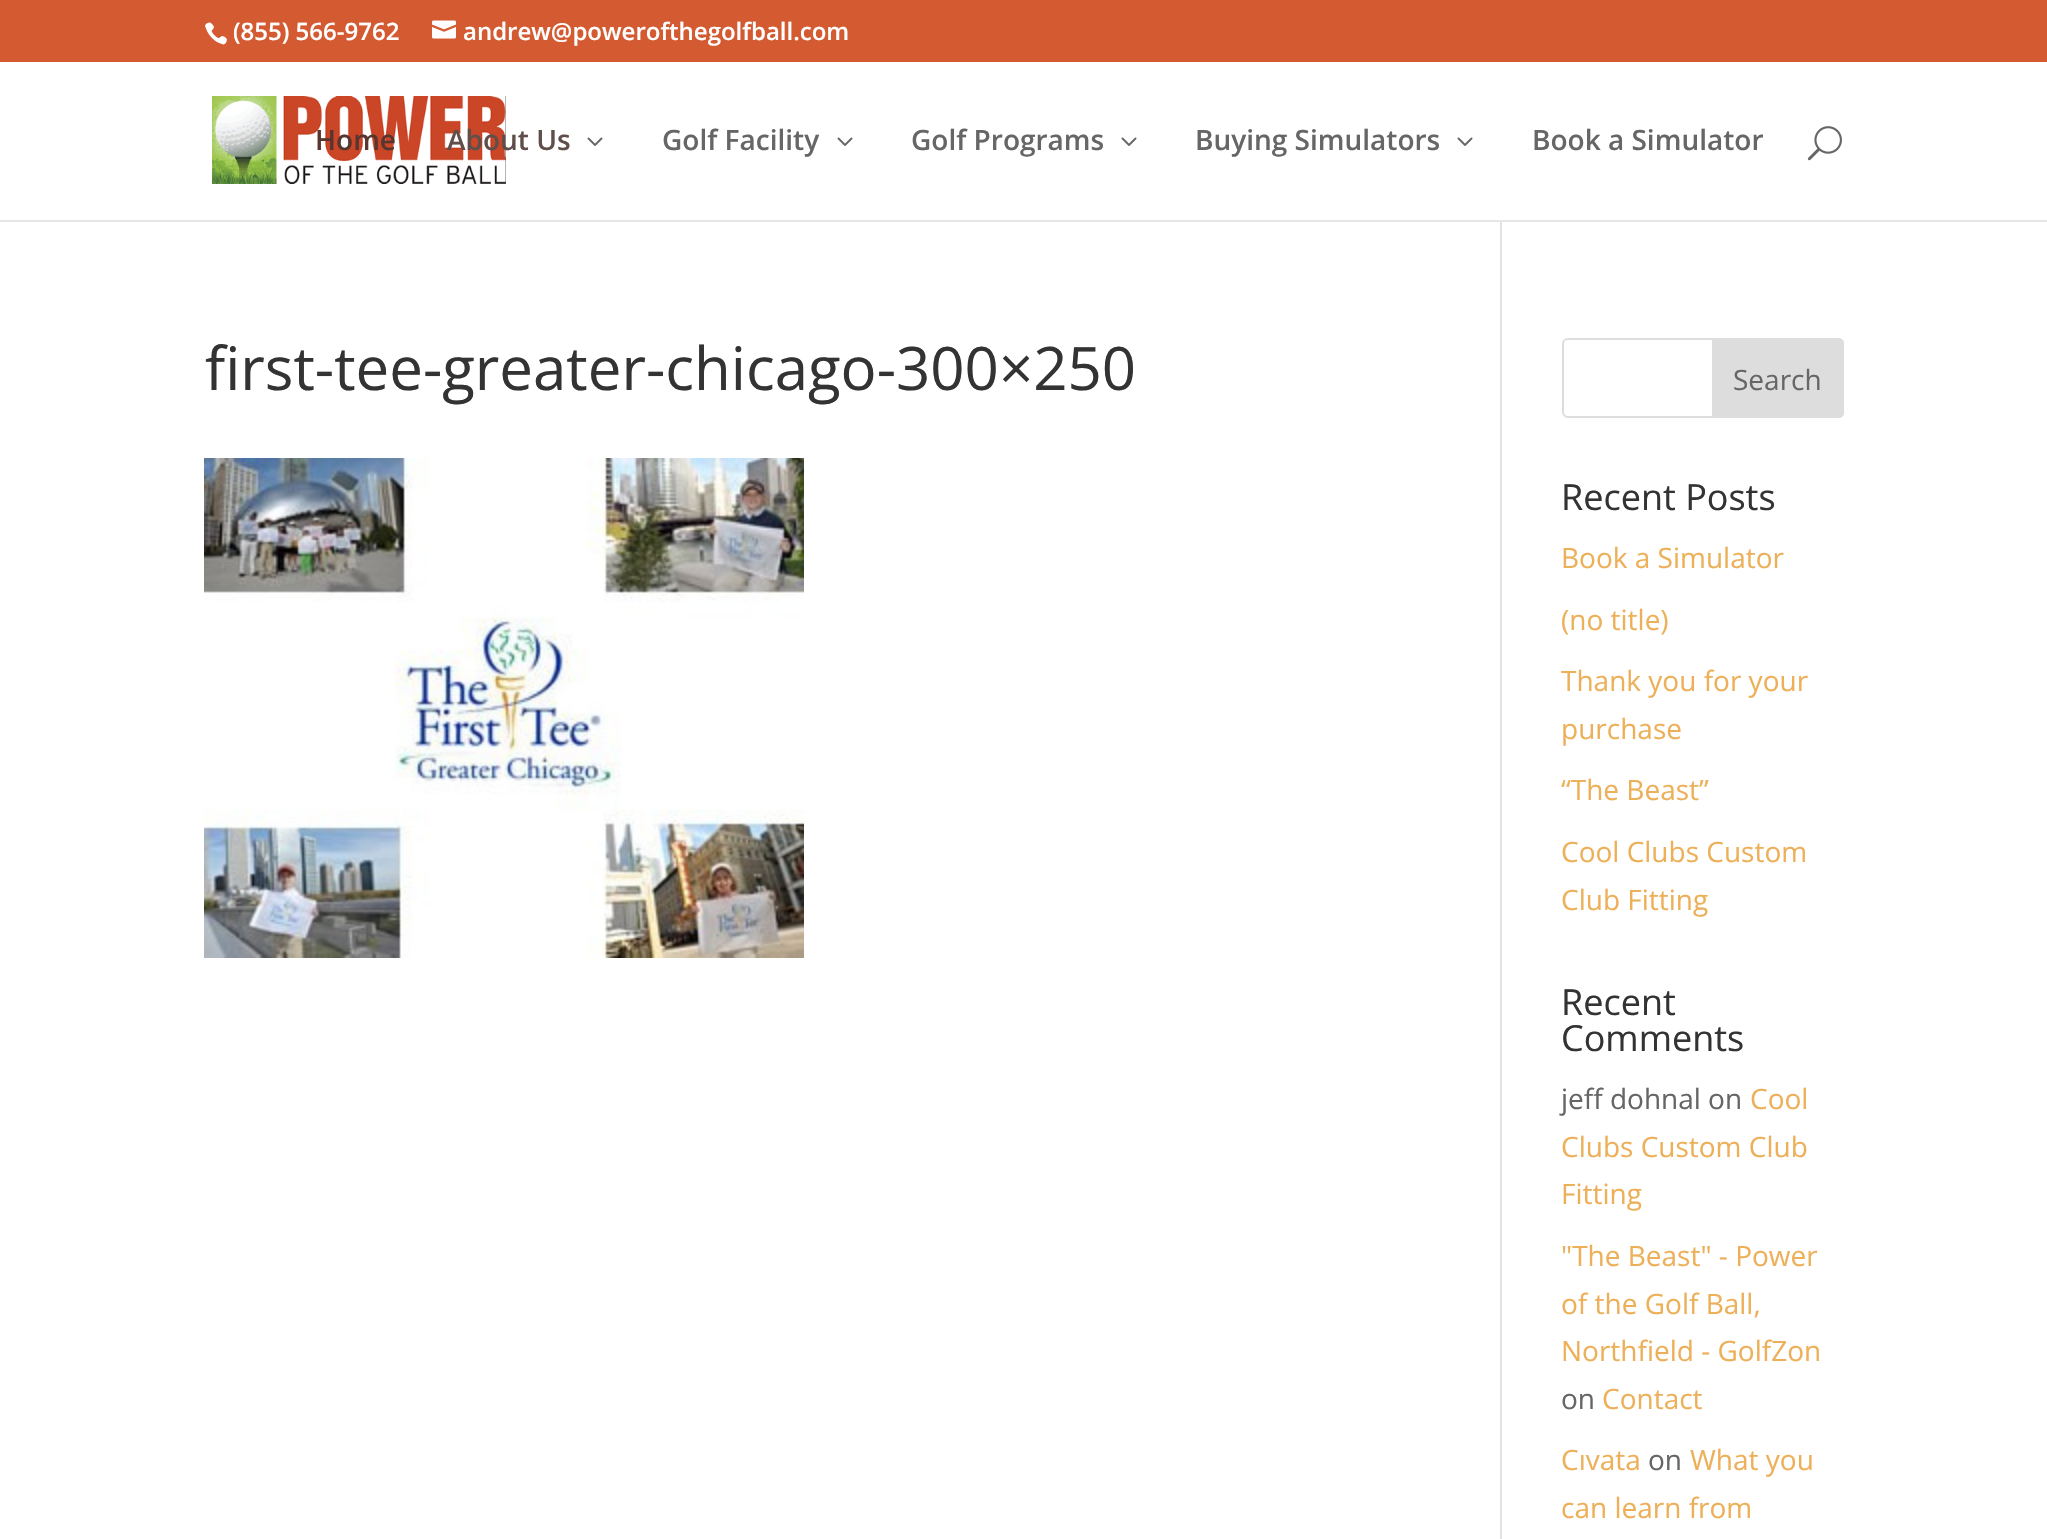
void draw(SkCanvas* canvas) {
    SkPaint paint;
    paint.setAntiAlias(true);
    auto face = [&](const char* family, int weight, float size, bool italic = false) {
        SkFontStyle style(weight, SkFontStyle::kNormal_Width,
            italic ? SkFontStyle::kItalic_Slant : SkFontStyle::kUpright_Slant);
        SkFont result(fontMgr->matchFamilyStyle(family, style), size);
        result.setSubpixel(true);
        return result;
    };
    auto write = [&](const char* s, float x, float y, const SkFont& font, SkColor color) {
        SkPaint ink(SkColor4f::FromColor(color));
        ink.setAntiAlias(true);
        canvas->drawString(s, x, y, font, ink);
    };
    auto block = [&](float x, float y, float w, float h, SkColor color) {
        SkPaint ink(SkColor4f::FromColor(color));
        ink.setAntiAlias(true);
        canvas->drawRect(SkRect::MakeXYWH(x, y, w, h), ink);
    };
    auto paste = [&](const char* path, float x, float y, float w, float h) {
        auto image = SkImages::DeferredFromEncodedData(SkData::MakeFromFileName(path));
        canvas->drawImageRect(image, SkRect::MakeXYWH(x, y, w, h), SkSamplingOptions());
    };
    canvas->clear(SK_ColorWHITE);
    block(0, 0, 2047, 62, SkColorSetRGB(211, 90, 49));
    paste("pic1.png", 205, 22, 22, 23);
    auto kFont1 = face("Open Sans", 600, 24);
    write("(855) 566-9762", 233, 40, kFont1, SK_ColorWHITE);
    paste("pic2.png", 432, 20, 24, 19);
    write("andrew@powerofthegolfball.com", 463, 40, kFont1, SK_ColorWHITE);
    block(0, 220, 2047, 2, SkColorSetRGB(230, 230, 230));
    paste("pic3.png", 212, 96, 294, 88);
    auto kFont2 = face("Open Sans", 600, 28);
    write("Home", 315, 150, kFont2, SkColorSetRGB(88, 53, 46));
    write("About Us", 447, 150, kFont2, SkColorSetRGB(95, 78, 74));
    paste("pic4.png", 587, 137, 16, 9);
    write("Golf Facility", 662, 150, kFont2, SkColorSetRGB(102, 102, 102));
    paste("pic4.png", 837, 137, 16, 9);
    write("Golf Programs", 911, 150, kFont2, SkColorSetRGB(102, 102, 102));
    paste("pic4.png", 1121, 137, 16, 9);
    write("Buying Simulators", 1195, 150, kFont2, SkColorSetRGB(102, 102, 102));
    paste("pic4.png", 1457, 137, 16, 9);
    write("Book a Simulator", 1532, 150, kFont2, SkColorSetRGB(102, 102, 102));
    paste("pic5.png", 1807, 126, 35, 35);
    block(1500, 222, 2, 1317, SkColorSetRGB(226, 226, 226));
    auto kFont3 = face("Open Sans", 400, 60);
    write("first-tee-greater-chicago-300×250", 205, 390, kFont3, SkColorSetRGB(51, 51, 51));
    paste("pic6.png", 204, 458, 600, 500);
    paint.setStyle(SkPaint::kStroke_Style);
    paint.setStrokeWidth(2);
    paint.setColor(SkColorSetRGB(221, 221, 221));
    canvas->drawRoundRect(SkRect::MakeXYWH(1563, 339, 280, 78), 5, 5, paint);
    paint.setStyle(SkPaint::kFill_Style);
    canvas->drawPath(SkPathBuilder().moveTo(1713, 339).lineTo(1838, 339).cubicTo(1841, 339, 1843, 341, 1843, 344).lineTo(1843, 412).cubicTo(1843, 415, 1841, 417, 1838, 417).lineTo(1713, 417).close().detach(), paint);
    paint.setStyle(SkPaint::kStroke_Style);
    canvas->drawPath(SkPathBuilder().moveTo(1713, 339).lineTo(1838, 339).cubicTo(1841, 339, 1843, 341, 1843, 344).lineTo(1843, 412).cubicTo(1843, 415, 1841, 417, 1838, 417).lineTo(1713, 417).close().detach(), paint);
    auto kFont4 = face("Open Sans", 400, 28);
    write("Search", 1733, 390, kFont4, SkColorSetRGB(102, 102, 102));
    auto kFont5 = face("Open Sans", 400, 36);
    write("Recent Posts", 1561, 510, kFont5, SkColorSetRGB(51, 51, 51));
    write("Book a Simulator", 1561, 568, kFont4, SkColorSetRGB(237, 176, 89));
    write("(no title)", 1561, 630, kFont4, SkColorSetRGB(237, 176, 89));
    write("Thank you for your", 1561, 691, kFont4, SkColorSetRGB(237, 176, 89));
    write("purchase", 1561, 739, kFont4, SkColorSetRGB(237, 176, 89));
    write("“The Beast”", 1561, 800, kFont4, SkColorSetRGB(237, 176, 89));
    write("Cool Clubs Custom", 1561, 862, kFont4, SkColorSetRGB(237, 176, 89));
    write("Club Fitting", 1561, 910, kFont4, SkColorSetRGB(237, 176, 89));
    write("Recent", 1561, 1015, kFont5, SkColorSetRGB(51, 51, 51));
    write("Comments", 1561, 1051, kFont5, SkColorSetRGB(51, 51, 51));
    write("jeff dohnal on", 1561, 1109, kFont4, SkColorSetRGB(102, 102, 102));
    write("Cool", 1750, 1109, kFont4, SkColorSetRGB(237, 176, 89));
    write("Clubs Custom Club", 1561, 1157, kFont4, SkColorSetRGB(237, 176, 89));
    write("Fitting", 1561, 1204, kFont4, SkColorSetRGB(237, 176, 89));
    write("\"The Beast\" - Power", 1561, 1266, kFont4, SkColorSetRGB(237, 176, 89));
    write("of the Golf Ball,", 1561, 1314, kFont4, SkColorSetRGB(237, 176, 89));
    write("Northfield - GolfZon", 1561, 1361, kFont4, SkColorSetRGB(237, 176, 89));
    write("on", 1561, 1409, kFont4, SkColorSetRGB(102, 102, 102));
    write("Contact", 1602, 1409, kFont4, SkColorSetRGB(237, 176, 89));
    write("Cıvata", 1561, 1470, kFont4, SkColorSetRGB(237, 176, 89));
    write("on", 1648, 1470, kFont4, SkColorSetRGB(102, 102, 102));
    write("What you", 1690, 1470, kFont4, SkColorSetRGB(237, 176, 89));
    write("can learn from", 1561, 1518, kFont4, SkColorSetRGB(237, 176, 89));
}
